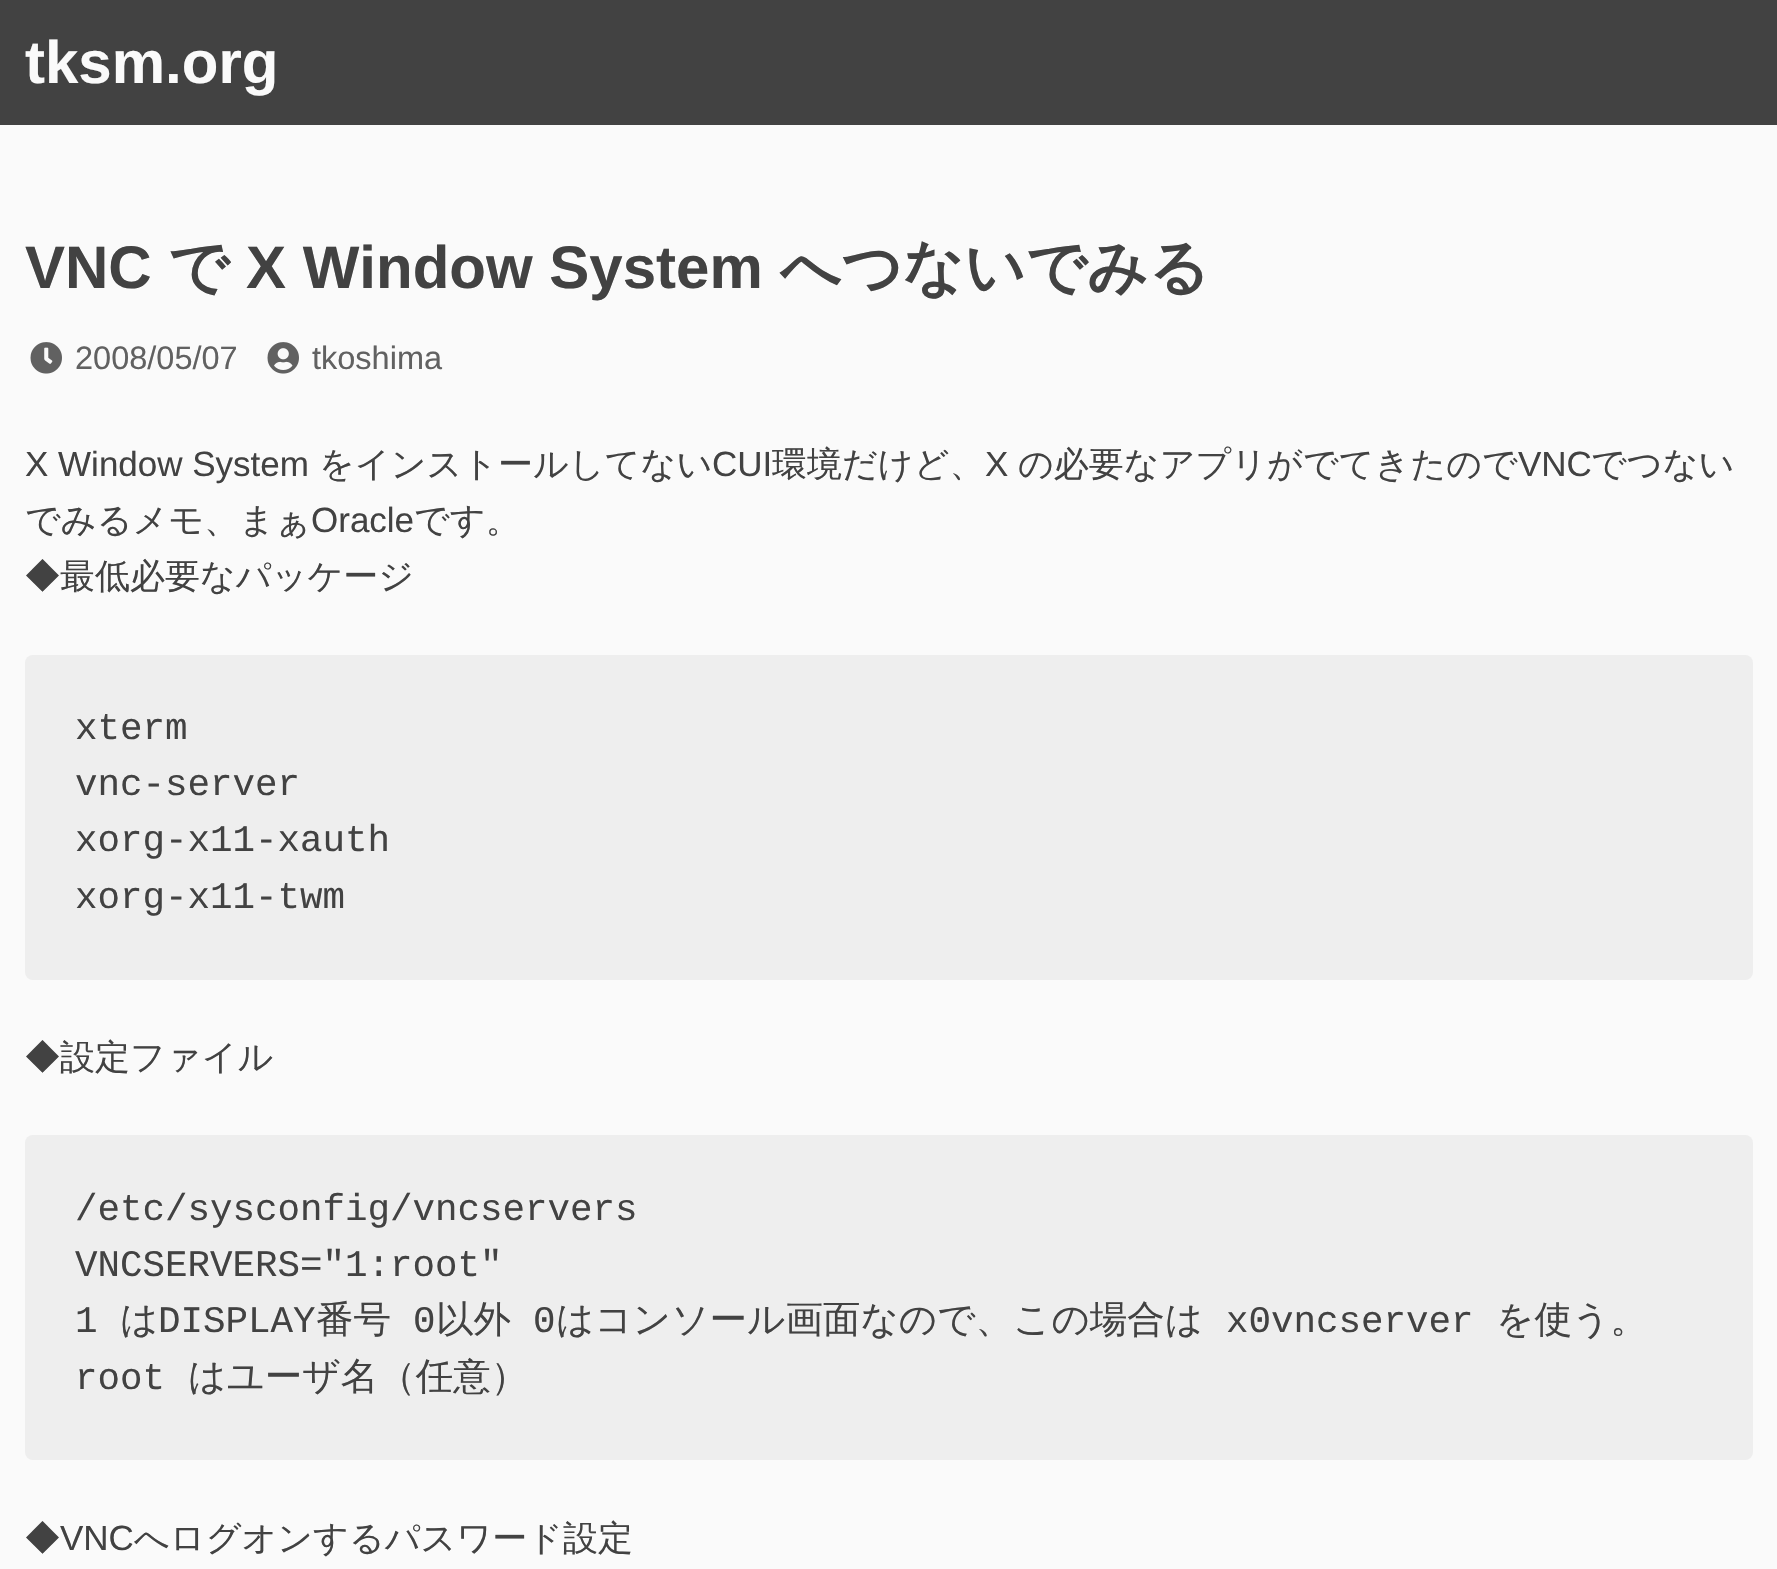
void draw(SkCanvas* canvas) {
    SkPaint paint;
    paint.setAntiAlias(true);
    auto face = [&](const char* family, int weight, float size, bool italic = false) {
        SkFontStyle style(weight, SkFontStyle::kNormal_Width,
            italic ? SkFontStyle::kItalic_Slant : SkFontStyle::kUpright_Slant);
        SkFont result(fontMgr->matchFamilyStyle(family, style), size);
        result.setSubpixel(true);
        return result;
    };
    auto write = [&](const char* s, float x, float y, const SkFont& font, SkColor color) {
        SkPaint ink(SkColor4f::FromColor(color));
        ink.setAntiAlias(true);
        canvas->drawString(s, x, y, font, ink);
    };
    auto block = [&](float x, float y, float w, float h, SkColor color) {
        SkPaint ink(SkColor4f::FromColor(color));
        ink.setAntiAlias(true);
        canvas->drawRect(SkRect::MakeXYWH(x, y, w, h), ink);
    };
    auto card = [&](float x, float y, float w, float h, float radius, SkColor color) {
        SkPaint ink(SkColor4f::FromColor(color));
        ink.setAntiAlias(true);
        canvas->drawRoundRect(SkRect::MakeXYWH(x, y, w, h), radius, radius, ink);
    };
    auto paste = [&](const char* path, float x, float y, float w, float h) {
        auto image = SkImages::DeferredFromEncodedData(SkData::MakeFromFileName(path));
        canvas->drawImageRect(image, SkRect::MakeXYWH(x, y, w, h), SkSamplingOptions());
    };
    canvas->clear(SkColorSetRGB(250, 250, 250));
    block(0, 0, 1777, 125, SkColorSetRGB(66, 66, 66));
    auto kFont1 = face("Liberation Sans", 700, 60);
    write("tksm.org", 25, 83, kFont1, SkColorSetRGB(250, 250, 250));
    write("VNC", 25, 288, kFont1, SkColorSetRGB(66, 66, 66));
    auto kFont2 = face("WenQuanYi Zen Hei", 700, 60);
    write("で", 168, 288, kFont2, SkColorSetRGB(66, 66, 66));
    write("X Window System", 246, 288, kFont1, SkColorSetRGB(66, 66, 66));
    write("へつないでみる", 780, 288, kFont2, SkColorSetRGB(66, 66, 66));
    paste("pic1.png", 30, 342, 32, 32);
    auto kFont3 = face("Liberation Sans", 400, 32.5f);
    write("2008/05/07", 75, 369, kFont3, SkColorSetRGB(97, 97, 97));
    paste("pic2.png", 267, 342, 32, 32);
    write("tkoshima", 312, 369, kFont3, SkColorSetRGB(97, 97, 97));
    auto kFont4 = face("Liberation Sans", 400, 35);
    write("X Window System", 25, 476, kFont4, SkColorSetRGB(66, 66, 66));
    auto kFont5 = face("WenQuanYi Zen Hei", 500, 35);
    write("をインストールしてない", 319, 476, kFont5, SkColorSetRGB(66, 66, 66));
    write("CUI", 712, 476, kFont4, SkColorSetRGB(66, 66, 66));
    write("環境だけど、", 772, 476, kFont5, SkColorSetRGB(66, 66, 66));
    write("X", 985, 476, kFont4, SkColorSetRGB(66, 66, 66));
    write("の必要なアプリがでてきたので", 1018, 476, kFont5, SkColorSetRGB(66, 66, 66));
    write("VNC", 1518, 476, kFont4, SkColorSetRGB(66, 66, 66));
    write("でつない", 1591, 476, kFont5, SkColorSetRGB(66, 66, 66));
    write("でみるメモ、まぁ", 25, 532, kFont5, SkColorSetRGB(66, 66, 66));
    write("Oracle", 311, 532, kFont4, SkColorSetRGB(66, 66, 66));
    write("です。", 414, 532, kFont5, SkColorSetRGB(66, 66, 66));
    write("◆最低必要なパッケージ", 25, 588, kFont5, SkColorSetRGB(66, 66, 66));
    card(25, 655, 1728, 325, 8, SkColorSetRGB(238, 238, 238));
    auto kFont6 = face("Liberation Mono", 400, 37.5f);
    write("xterm", 75, 739, kFont6, SkColorSetRGB(66, 66, 66));
    write("vnc-server", 75, 795, kFont6, SkColorSetRGB(66, 66, 66));
    write("xorg-x11-xauth", 75, 851, kFont6, SkColorSetRGB(66, 66, 66));
    write("xorg-x11-twm", 75, 908, kFont6, SkColorSetRGB(66, 66, 66));
    write("◆設定ファイル", 25, 1069, kFont5, SkColorSetRGB(66, 66, 66));
    card(25, 1135, 1728, 325, 8, SkColorSetRGB(238, 238, 238));
    write("/etc/sysconfig/vncservers", 75, 1220, kFont6, SkColorSetRGB(66, 66, 66));
    write("VNCSERVERS=\"1:root\"", 75, 1276, kFont6, SkColorSetRGB(66, 66, 66));
    write("1", 75, 1332, kFont6, SkColorSetRGB(66, 66, 66));
    auto kFont7 = face("WenQuanYi Zen Hei", 500, 37.5f);
    write("は", 120, 1332, kFont7, SkColorSetRGB(66, 66, 66));
    write("DISPLAY", 158, 1332, kFont6, SkColorSetRGB(66, 66, 66));
    write("番号", 316, 1332, kFont7, SkColorSetRGB(66, 66, 66));
    write("0", 413, 1332, kFont6, SkColorSetRGB(66, 66, 66));
    write("以外", 436, 1332, kFont7, SkColorSetRGB(66, 66, 66));
    write("0", 533, 1332, kFont6, SkColorSetRGB(66, 66, 66));
    write("はコンソール画面なので、この場合は", 556, 1332, kFont7, SkColorSetRGB(66, 66, 66));
    write("x0vncserver", 1226, 1332, kFont6, SkColorSetRGB(66, 66, 66));
    write("を使う。", 1496, 1332, kFont7, SkColorSetRGB(66, 66, 66));
    write("root", 75, 1389, kFont6, SkColorSetRGB(66, 66, 66));
    write("はユーザ名（任意）", 188, 1389, kFont7, SkColorSetRGB(66, 66, 66));
    write("◆", 25, 1550, kFont5, SkColorSetRGB(66, 66, 66));
    write("VNC", 60, 1550, kFont4, SkColorSetRGB(66, 66, 66));
    write("へログオンするパスワード設定", 134, 1550, kFont5, SkColorSetRGB(66, 66, 66));
}
